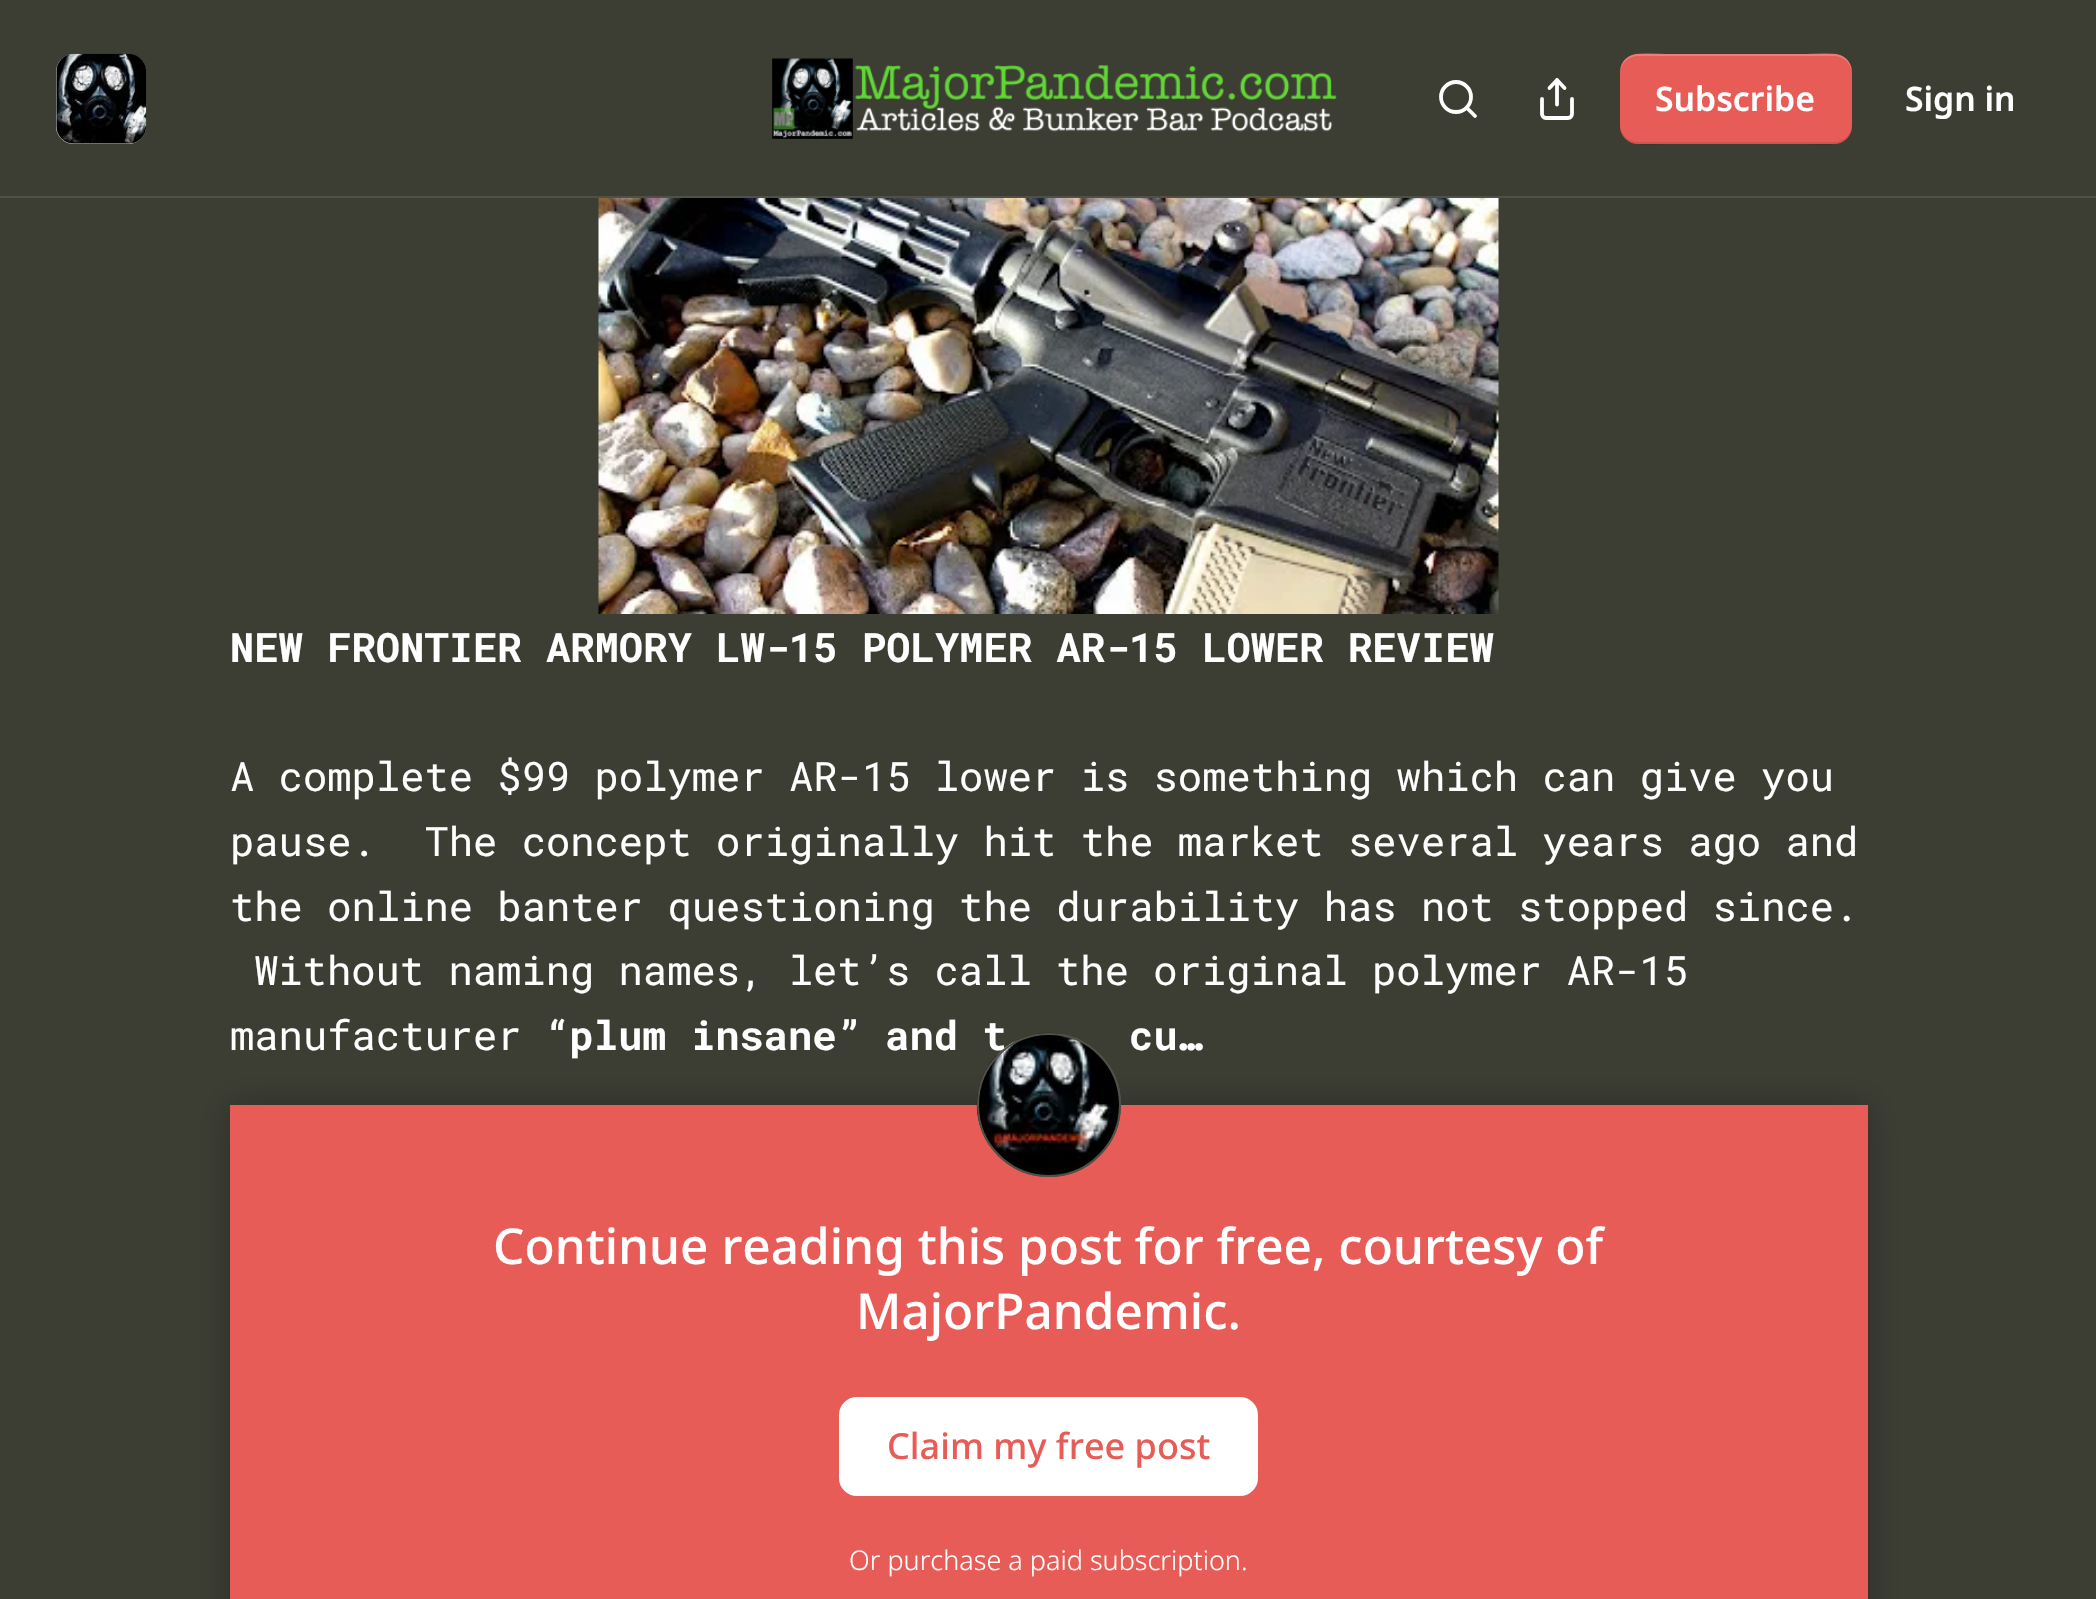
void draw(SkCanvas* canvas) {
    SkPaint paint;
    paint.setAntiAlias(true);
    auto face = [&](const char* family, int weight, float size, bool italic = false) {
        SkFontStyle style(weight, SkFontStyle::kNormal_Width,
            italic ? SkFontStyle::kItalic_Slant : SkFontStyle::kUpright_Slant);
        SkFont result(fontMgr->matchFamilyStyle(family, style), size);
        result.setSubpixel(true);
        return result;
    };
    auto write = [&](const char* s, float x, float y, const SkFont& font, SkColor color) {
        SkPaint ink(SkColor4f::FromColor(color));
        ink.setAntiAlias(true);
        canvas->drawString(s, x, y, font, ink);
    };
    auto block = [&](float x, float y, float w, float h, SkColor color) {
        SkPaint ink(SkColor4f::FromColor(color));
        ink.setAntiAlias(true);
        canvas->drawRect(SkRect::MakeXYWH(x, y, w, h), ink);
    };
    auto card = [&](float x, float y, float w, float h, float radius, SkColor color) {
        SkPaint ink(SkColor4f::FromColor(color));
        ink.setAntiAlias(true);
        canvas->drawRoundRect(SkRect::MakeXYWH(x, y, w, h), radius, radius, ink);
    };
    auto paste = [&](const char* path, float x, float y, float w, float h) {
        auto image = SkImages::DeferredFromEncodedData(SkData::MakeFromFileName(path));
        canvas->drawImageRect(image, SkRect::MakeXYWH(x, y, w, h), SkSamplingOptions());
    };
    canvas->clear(SkColorSetRGB(60, 61, 51));
    block(0, 196, 2096, 2, SkColorSetRGB(80, 80, 71));
    card(56, 54, 90, 90, 18, SK_ColorWHITE);
    paste("pic1.png", 56, 53, 91, 91);
    paste("pic2.png", 772, 58, 565, 81);
    paint.setStyle(SkPaint::kStroke_Style);
    paint.setStrokeWidth(3.8f);
    paint.setColor(SK_ColorWHITE);
    canvas->drawCircle(1456, 97, 15, paint);
    paint.setStrokeCap(SkPaint::kRound_Cap);
    paint.setStrokeJoin(SkPaint::kRound_Join);
    canvas->drawPath(SkPathBuilder().moveTo(1475, 116).lineTo(1467, 108).detach(), paint);
    canvas->drawPath(SkPathBuilder().moveTo(1542, 99).lineTo(1542, 114).cubicTo(1542, 116, 1543.5f, 118, 1546, 118).lineTo(1568, 118).cubicTo(1570.5f, 118, 1572, 116, 1572, 114).lineTo(1572, 99).moveTo(1564.5f, 88).lineTo(1557, 80).lineTo(1549.5f, 88).moveTo(1557, 80).lineTo(1557, 104.5f).detach(), paint);
    card(1620, 54, 232, 90, 18, SkColorSetRGB(232, 92, 87));
    paint.setStyle(SkPaint::kFill_Style);
    paint.setColor(SkColorSetARGB(26, 0, 0, 0));
    canvas->drawPath(SkPathBuilder().moveTo(1620, 124).cubicTo(1620, 152, 1653, 144, 1671, 144).lineTo(1801, 144).cubicTo(1819, 144, 1852, 152, 1852, 124).cubicTo(1852, 134, 1844, 142, 1834, 142).lineTo(1638, 142).cubicTo(1628, 142, 1620, 134, 1620, 124).close().detach(), paint);
    paint.setColor(SkColorSetARGB(51, 255, 255, 255));
    canvas->drawPath(SkPathBuilder().moveTo(1638, 56).lineTo(1834, 56).cubicTo(1844, 56, 1852, 64, 1852, 74).cubicTo(1852, 46, 1819, 54, 1801, 54).lineTo(1671, 54).cubicTo(1653, 54, 1620, 46, 1620, 74).cubicTo(1620, 64, 1628, 56, 1638, 56).close().detach(), paint);
    auto kFont1 = face("Noto Sans", 600, 33.75f);
    write("Subscribe", 1655, 111, kFont1, SK_ColorWHITE);
    write("Sign in", 1905, 111, kFont1, SK_ColorWHITE);
    paste("pic3.png", 598, 198, 901, 416);
    auto kFont2 = face("Roboto Mono", 700, 40.5f);
    write("NEW FRONTIER ARMORY LW-15 POLYMER AR-15 LOWER REVIEW", 230, 662, kFont2, SK_ColorWHITE);
    auto kFont3 = face("Roboto Mono", 400, 40.5f);
    write("A complete $99 polymer AR-15 lower is something which can give you", 230, 791, kFont3, SK_ColorWHITE);
    write("pause.  The concept originally hit the market several years ago and", 230, 856, kFont3, SK_ColorWHITE);
    write("the online banter questioning the durability has not stopped since.", 230, 921, kFont3, SK_ColorWHITE);
    write("Without naming names, let’s call the original polymer AR-15", 254, 985, kFont3, SK_ColorWHITE);
    write("manufacturer", 230, 1050, kFont3, SK_ColorWHITE);
    write("“plum insane” and t", 545, 1050, kFont2, SK_ColorWHITE);
    write("cu…", 1129, 1050, kFont2, SK_ColorWHITE);
    block(230, 1105, 1638, 494, SkColorSetRGB(232, 92, 87));
    paint.setColor(SK_ColorWHITE);
    canvas->drawRoundRect(SkRect::MakeXYWH(840, 1398, 417, 97), 17, 17, paint);
    paint.setStyle(SkPaint::kStroke_Style);
    paint.setStrokeWidth(2);
    paint.setStrokeCap(SkPaint::kButt_Cap);
    paint.setStrokeJoin(SkPaint::kMiter_Join);
    canvas->drawRoundRect(SkRect::MakeXYWH(840, 1398, 417, 97), 17, 17, paint);
    canvas->save();
    canvas->clipPath(SkPathBuilder(SkPathFillType::kEvenOdd).moveTo(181, 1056).lineTo(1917, 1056).lineTo(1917, 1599).lineTo(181, 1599).close().moveTo(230, 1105).lineTo(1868, 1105).lineTo(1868, 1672).lineTo(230, 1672).close().detach(), true);
    paint.setStyle(SkPaint::kFill_Style);
    paint.setColor(SkColorSetARGB(64, 0, 0, 0));
    paint.setMaskFilter(SkMaskFilter::MakeBlur(kNormal_SkBlurStyle, 16));
    canvas->drawRect(SkRect::MakeXYWH(230, 1105, 1638, 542), paint);
    paint.setMaskFilter(nullptr);
    canvas->restore();
    paint.setStyle(SkPaint::kStroke_Style);
    paint.setColor(SkColorSetRGB(80, 80, 71));
    canvas->drawCircle(1049, 1105, 71, paint);
    paste("pic4.png", 976, 1032, 145, 145);
    canvas->drawCircle(1049, 1105, 71, paint);
    auto kFont4 = face("Noto Sans", 500, 49.5f);
    write("Continue reading this post for free, courtesy of", 493, 1264, kFont4, SK_ColorWHITE);
    write("MajorPandemic.", 856, 1329, kFont4, SK_ColorWHITE);
    auto kFont5 = face("Noto Sans", 500, 36);
    write("Claim my free post", 887, 1459, kFont5, SkColorSetRGB(232, 92, 87));
    auto kFont6 = face("Noto Sans", 300, 27);
    write("Or purchase a paid subscription.", 849, 1570, kFont6, SK_ColorWHITE);
}
